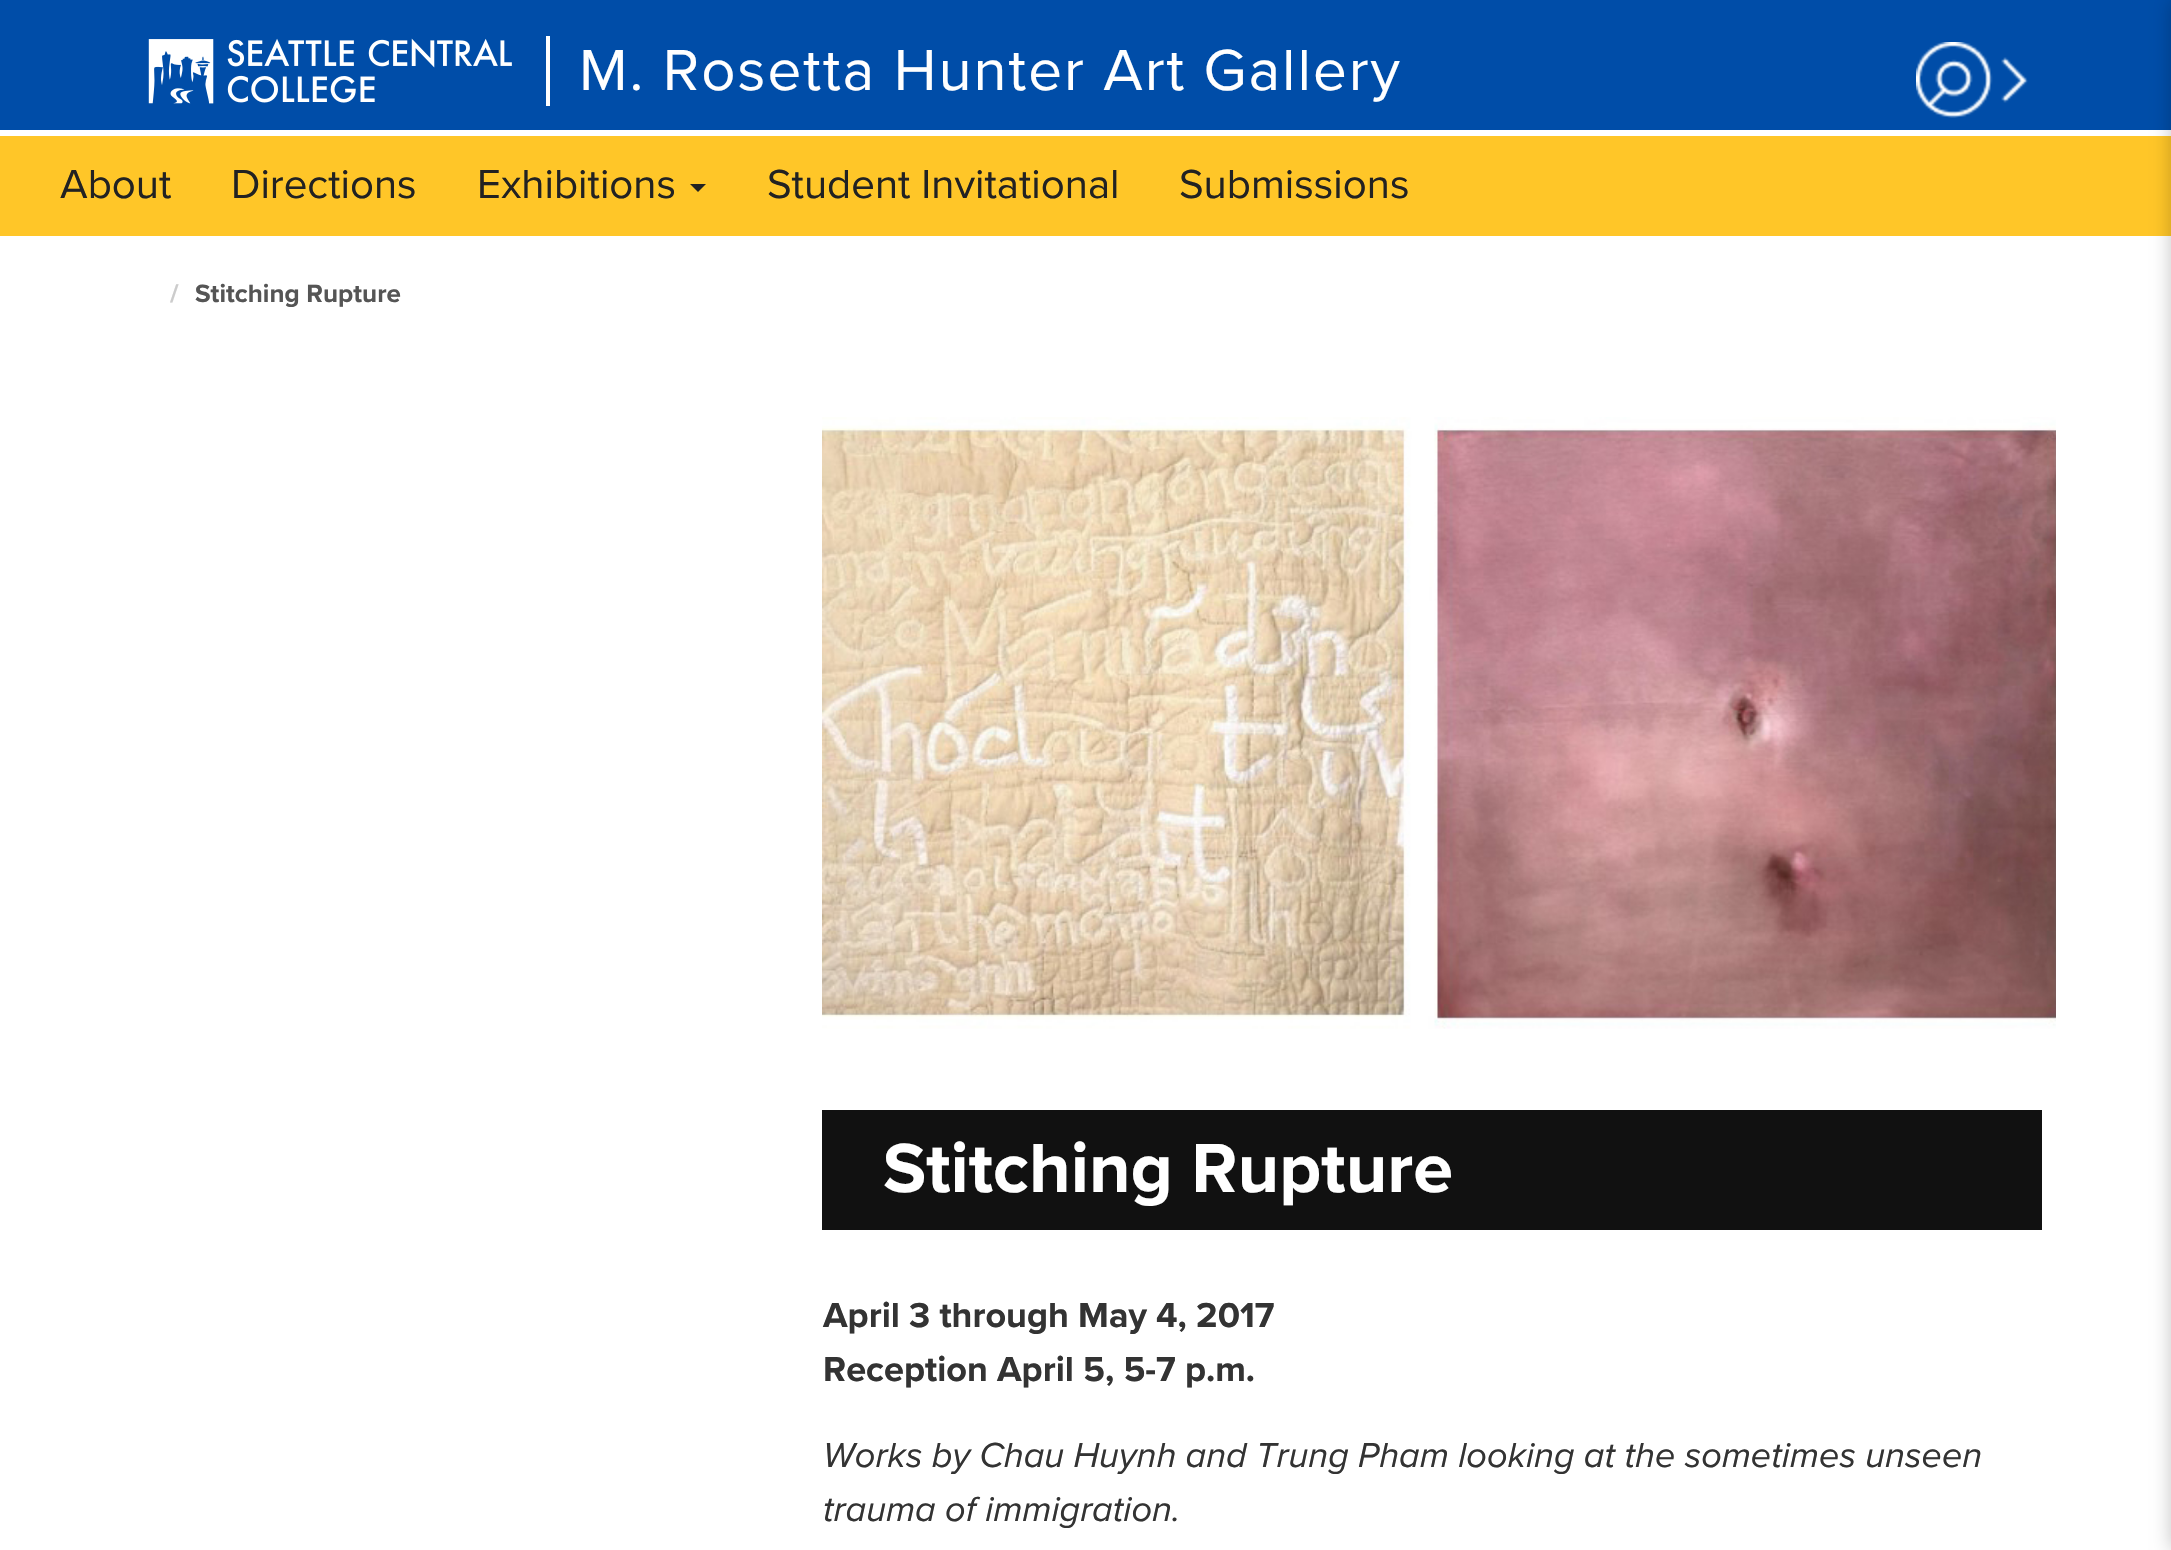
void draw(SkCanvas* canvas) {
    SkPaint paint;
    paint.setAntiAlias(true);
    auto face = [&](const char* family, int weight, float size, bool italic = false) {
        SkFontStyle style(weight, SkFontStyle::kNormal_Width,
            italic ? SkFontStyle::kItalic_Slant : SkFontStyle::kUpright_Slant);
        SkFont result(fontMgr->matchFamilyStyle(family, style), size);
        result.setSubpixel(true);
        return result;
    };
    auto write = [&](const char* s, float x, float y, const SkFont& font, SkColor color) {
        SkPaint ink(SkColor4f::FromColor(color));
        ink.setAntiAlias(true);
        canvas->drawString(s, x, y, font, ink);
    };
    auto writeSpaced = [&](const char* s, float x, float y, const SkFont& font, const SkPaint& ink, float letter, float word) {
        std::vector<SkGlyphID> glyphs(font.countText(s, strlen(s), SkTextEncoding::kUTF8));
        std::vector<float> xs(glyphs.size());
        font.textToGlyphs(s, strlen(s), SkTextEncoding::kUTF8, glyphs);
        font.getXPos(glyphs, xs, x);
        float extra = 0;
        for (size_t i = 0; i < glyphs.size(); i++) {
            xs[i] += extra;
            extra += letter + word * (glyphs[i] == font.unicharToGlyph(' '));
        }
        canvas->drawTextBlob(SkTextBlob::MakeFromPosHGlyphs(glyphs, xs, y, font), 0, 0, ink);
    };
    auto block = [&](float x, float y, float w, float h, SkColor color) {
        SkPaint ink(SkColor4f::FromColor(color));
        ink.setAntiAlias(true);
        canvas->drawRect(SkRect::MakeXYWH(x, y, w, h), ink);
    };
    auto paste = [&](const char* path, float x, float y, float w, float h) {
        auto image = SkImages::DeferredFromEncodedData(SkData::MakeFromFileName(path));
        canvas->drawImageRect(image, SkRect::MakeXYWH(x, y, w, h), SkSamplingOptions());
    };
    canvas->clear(SK_ColorWHITE);
    block(0, 0, 2171, 130, SkColorSetRGB(0, 77, 168));
    paste("pic1.png", 148, 38, 364, 66);
    block(546, 36, 4, 70, SK_ColorWHITE);
    auto kFont1 = face("Proxima Nova", 400, 60);
    paint.setColor(SK_ColorWHITE);
    writeSpaced("M. Rosetta Hunter Art Gallery", 579, 90, kFont1, paint, 2, 0);
    paste("pic2.png", 1916, 42, 112, 76);
    block(0, 136, 2171, 100, SkColorSetRGB(255, 198, 40));
    auto kFont2 = face("Proxima Nova", 400, 42);
    write("About", 60, 198, kFont2, SkColorSetRGB(34, 34, 34));
    write("Directions", 231, 198, kFont2, SkColorSetRGB(34, 34, 34));
    write("Exhibitions", 477, 198, kFont2, SkColorSetRGB(34, 34, 34));
    paint.setColor(SkColorSetRGB(34, 34, 34));
    canvas->drawPath(SkPathBuilder().moveTo(690, 184).lineTo(706, 184).lineTo(698, 192).close().detach(), paint);
    write("Student Invitational", 767, 198, kFont2, SkColorSetRGB(34, 34, 34));
    write("Submissions", 1179, 198, kFont2, SkColorSetRGB(34, 34, 34));
    paint.setColor(SkColorSetARGB(64, 0, 0, 0));
    paint.setMaskFilter(SkMaskFilter::MakeBlur(kNormal_SkBlurStyle, 10));
    canvas->drawRect(SkRect::MakeXYWH(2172, 0, 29, 1550), paint);
    paint.setMaskFilter(nullptr);
    auto kFont3 = face("Proxima Nova", 700, 26);
    write("/", 170, 302, kFont3, SkColorSetRGB(204, 204, 204));
    write("Stitching Rupture", 195, 302, kFont3, SkColorSetRGB(85, 85, 85));
    paste("pic3.png", 822, 417, 1234, 612);
    block(822, 1110, 1220, 120, SkColorSetRGB(17, 17, 17));
    auto kFont4 = face("Proxima Nova", 700, 72);
    write("Stitching Rupture", 883, 1192, kFont4, SK_ColorWHITE);
    auto kFont5 = face("Proxima Nova", 700, 36);
    write("April 3 through May 4, 2017", 823, 1327, kFont5, SkColorSetRGB(51, 51, 51));
    write("Reception April 5, 5-7 p.m.", 823, 1381, kFont5, SkColorSetRGB(51, 51, 51));
    auto kFont6 = face("Proxima Nova", 400, 36, true);
    write("Works by Chau Huynh and Trung Pham looking at the sometimes unseen", 823, 1467, kFont6, SkColorSetRGB(51, 51, 51));
    write("trauma of immigration.", 823, 1521, kFont6, SkColorSetRGB(51, 51, 51));
}
